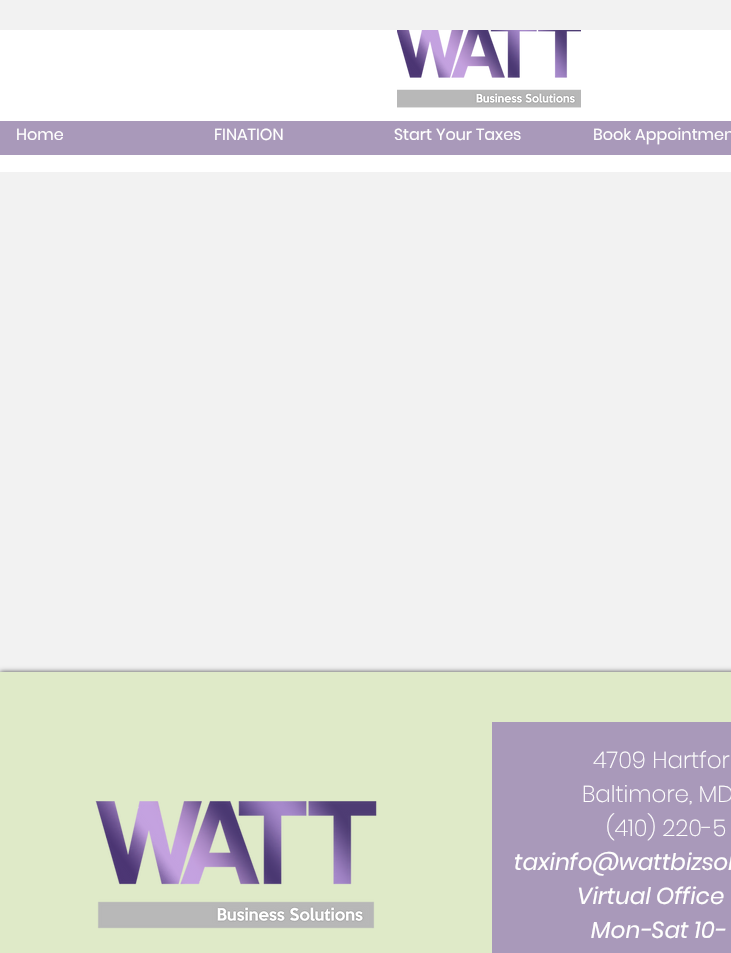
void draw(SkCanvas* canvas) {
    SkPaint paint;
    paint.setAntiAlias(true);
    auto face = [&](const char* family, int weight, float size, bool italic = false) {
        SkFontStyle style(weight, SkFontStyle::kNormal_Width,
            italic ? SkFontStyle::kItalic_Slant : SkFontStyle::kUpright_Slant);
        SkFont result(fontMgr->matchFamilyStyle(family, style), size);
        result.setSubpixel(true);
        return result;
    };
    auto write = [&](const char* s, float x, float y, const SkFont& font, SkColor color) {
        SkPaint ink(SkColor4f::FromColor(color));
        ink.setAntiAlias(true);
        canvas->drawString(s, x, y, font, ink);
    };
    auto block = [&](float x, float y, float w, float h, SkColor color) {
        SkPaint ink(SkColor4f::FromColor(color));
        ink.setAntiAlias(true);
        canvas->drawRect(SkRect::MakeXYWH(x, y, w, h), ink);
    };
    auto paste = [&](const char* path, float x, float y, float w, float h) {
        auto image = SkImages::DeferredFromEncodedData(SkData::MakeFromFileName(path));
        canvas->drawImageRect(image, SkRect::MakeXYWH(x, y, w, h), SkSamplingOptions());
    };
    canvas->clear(SK_ColorWHITE);
    block(0, 0, 731, 30, SkColorSetRGB(242, 242, 242));
    block(0, 172, 731, 500, SkColorSetRGB(242, 242, 242));
    paste("pic1.png", 397, 30, 184, 78);
    block(0, 121, 731, 34, SkColorSetRGB(169, 153, 186));
    auto kFont1 = face("Poppins", 400, 16);
    write("Home", 16, 140, kFont1, SkColorSetRGB(255, 255, 254));
    write("FINATION", 214, 140, kFont1, SkColorSetRGB(255, 255, 254));
    write("Start Your Taxes", 394, 140, kFont1, SkColorSetRGB(255, 255, 254));
    write("Book Appointmen", 593, 140, kFont1, SkColorSetRGB(255, 255, 254));
    paint.setColor(SkColorSetARGB(179, 0, 0, 0));
    paint.setMaskFilter(SkMaskFilter::MakeBlur(kNormal_SkBlurStyle, 2.5f));
    canvas->drawRect(SkRect::MakeXYWH(0, 672, 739, 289), paint);
    paint.setMaskFilter(nullptr);
    block(0, 672, 731, 281, SkColorSetRGB(223, 234, 200));
    paint.setColor(SkColorSetRGB(169, 153, 186));
    canvas->drawPath(SkPathBuilder().moveTo(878, 722).lineTo(492, 722).lineTo(492, 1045).lineTo(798, 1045).lineTo(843, 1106).lineTo(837, 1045).lineTo(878, 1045).close().detach(), paint);
    paste("pic2.png", 95, 801, 282, 128);
    auto kFont2 = face("Poppins", 200, 23);
    write("4709 Hartfor", 593, 768, kFont2, SkColorSetRGB(255, 255, 254));
    write("Baltimore, MD", 582, 802, kFont2, SkColorSetRGB(255, 255, 254));
    write("(410) 220-5", 606, 836, kFont2, SkColorSetRGB(255, 255, 254));
    auto kFont3 = face("Poppins", 400, 23, true);
    write("taxinfo@wattbizsol", 514, 870, kFont3, SkColorSetRGB(255, 255, 254));
    write("Virtual Office", 577, 904, kFont3, SkColorSetRGB(255, 255, 254));
    write("Mon-Sat 10-", 591, 938, kFont3, SkColorSetRGB(255, 255, 254));
}
